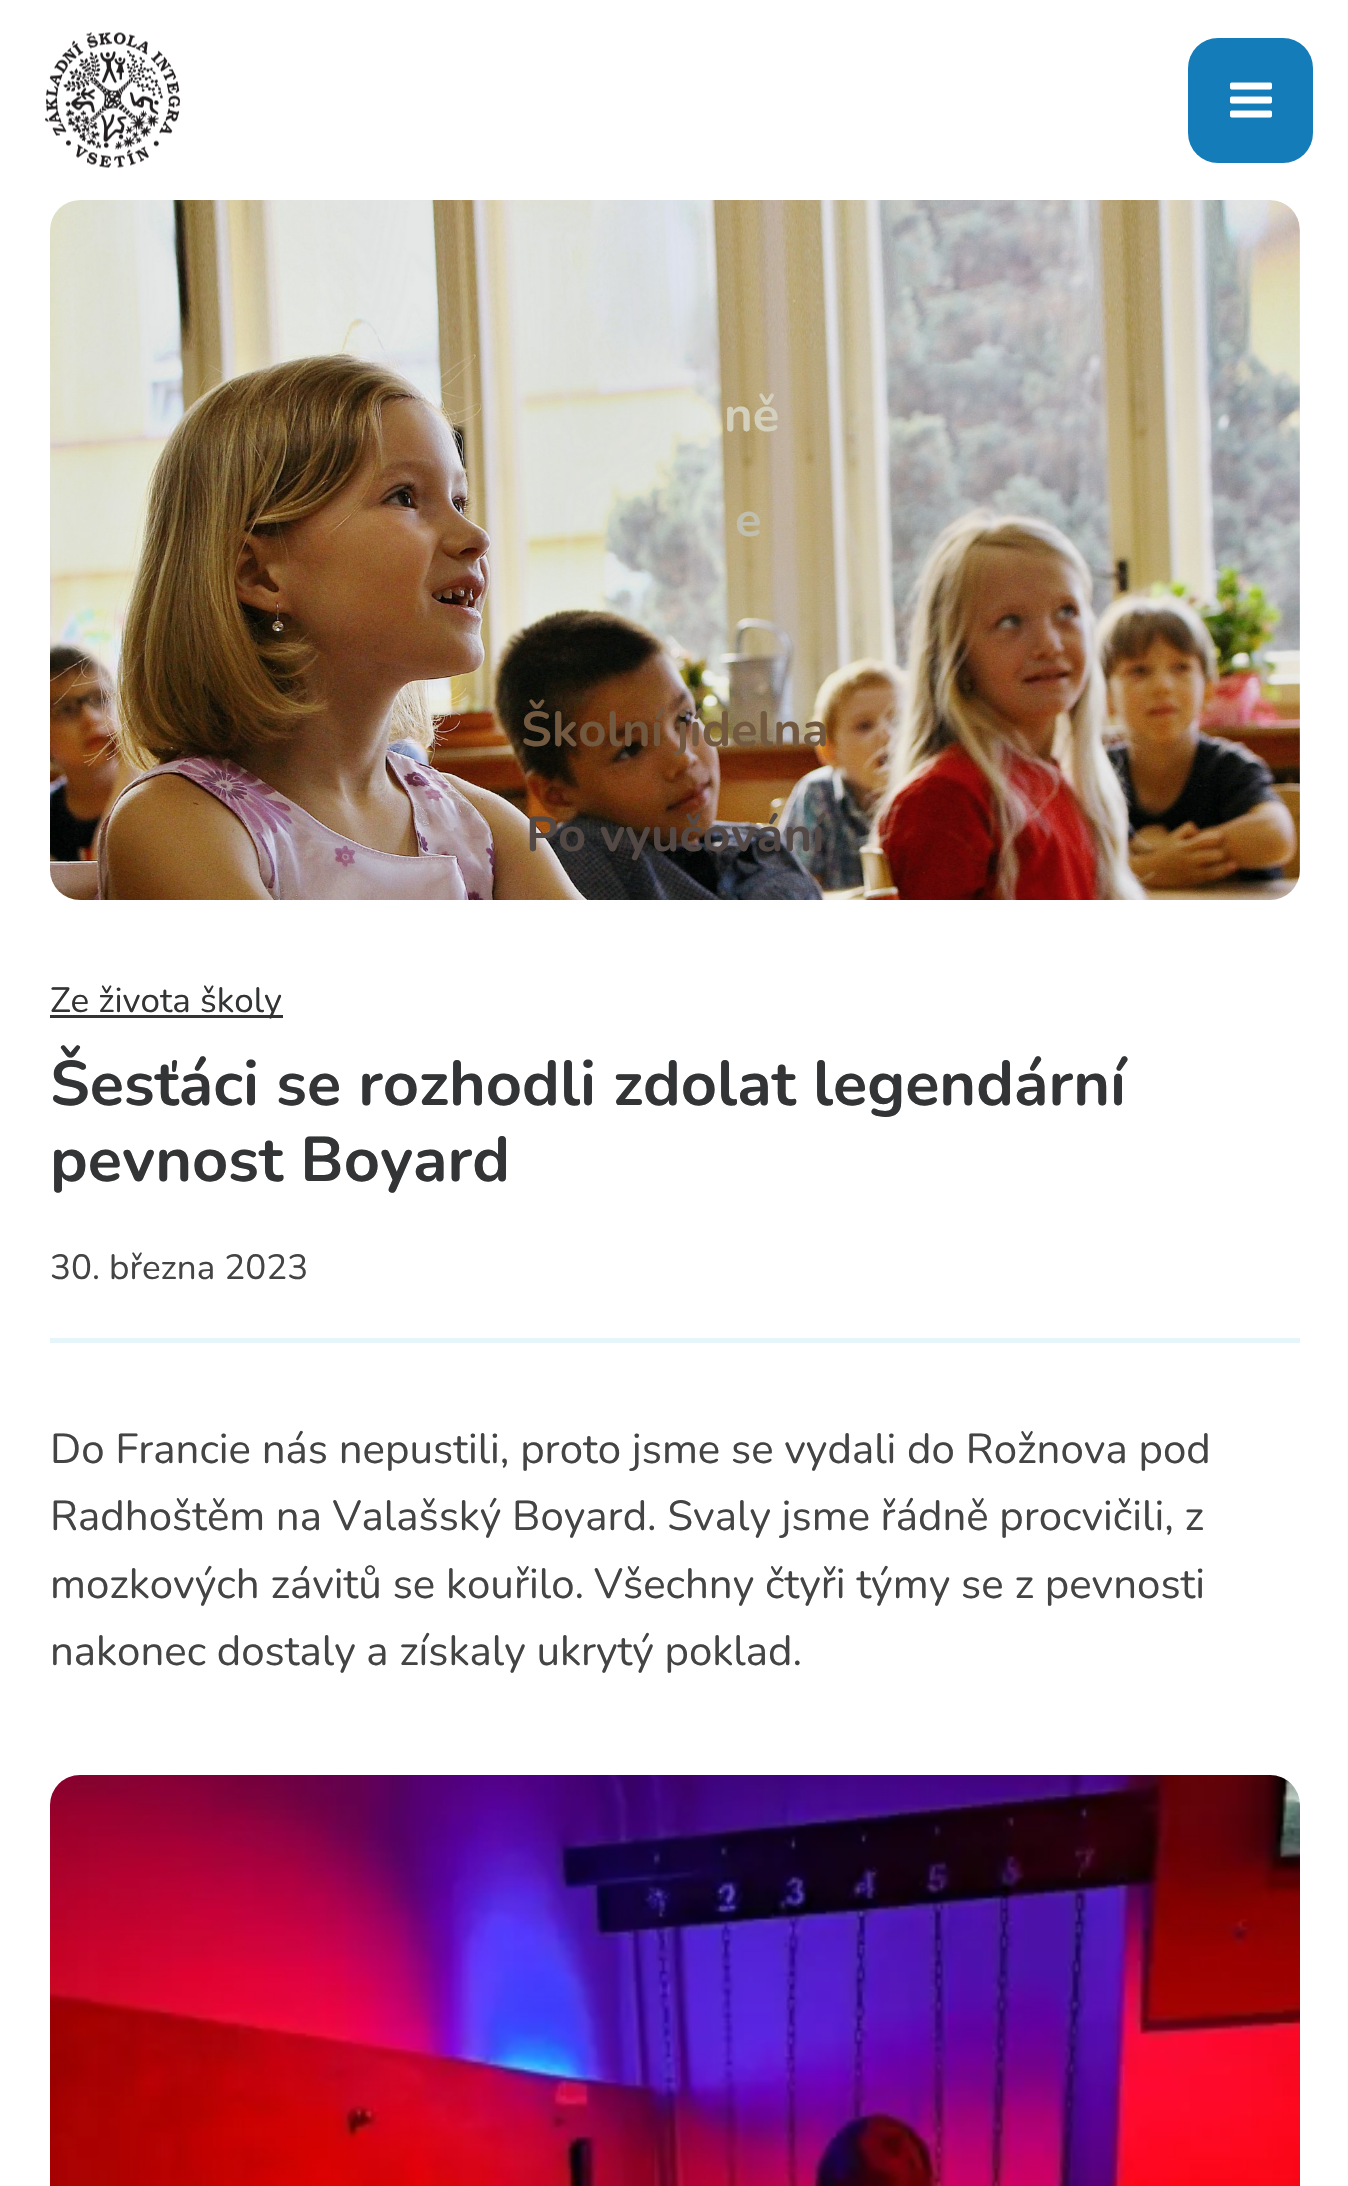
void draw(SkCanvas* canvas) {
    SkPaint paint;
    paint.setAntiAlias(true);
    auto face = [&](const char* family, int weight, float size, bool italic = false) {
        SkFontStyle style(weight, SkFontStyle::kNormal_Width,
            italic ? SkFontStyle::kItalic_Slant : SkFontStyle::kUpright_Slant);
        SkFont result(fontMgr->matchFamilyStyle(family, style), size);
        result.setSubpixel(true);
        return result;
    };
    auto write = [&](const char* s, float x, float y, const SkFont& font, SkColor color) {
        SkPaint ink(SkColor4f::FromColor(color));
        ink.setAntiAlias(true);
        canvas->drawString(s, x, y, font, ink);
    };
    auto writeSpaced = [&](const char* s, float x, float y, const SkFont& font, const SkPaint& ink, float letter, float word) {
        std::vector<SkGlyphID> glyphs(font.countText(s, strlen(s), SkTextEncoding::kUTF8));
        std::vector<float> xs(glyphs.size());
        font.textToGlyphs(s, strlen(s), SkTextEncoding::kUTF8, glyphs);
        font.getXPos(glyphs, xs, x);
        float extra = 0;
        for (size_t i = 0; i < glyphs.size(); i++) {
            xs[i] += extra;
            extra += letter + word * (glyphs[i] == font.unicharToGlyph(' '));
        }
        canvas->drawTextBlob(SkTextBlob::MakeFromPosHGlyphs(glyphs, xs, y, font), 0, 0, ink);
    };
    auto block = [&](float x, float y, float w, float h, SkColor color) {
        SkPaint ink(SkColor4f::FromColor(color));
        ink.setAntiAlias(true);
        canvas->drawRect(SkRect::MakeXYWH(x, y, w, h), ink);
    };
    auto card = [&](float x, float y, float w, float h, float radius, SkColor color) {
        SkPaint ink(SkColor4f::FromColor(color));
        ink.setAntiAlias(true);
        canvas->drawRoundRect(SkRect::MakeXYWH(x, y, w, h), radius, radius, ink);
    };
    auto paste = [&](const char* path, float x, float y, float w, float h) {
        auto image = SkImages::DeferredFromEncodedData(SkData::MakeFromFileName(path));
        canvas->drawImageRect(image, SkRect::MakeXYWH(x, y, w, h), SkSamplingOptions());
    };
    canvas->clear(SK_ColorWHITE);
    paste("pic1.png", 45, 32, 135, 136);
    paste("pic3.png", 50, 200, 1250, 700);
    paint.setColor(SK_ColorWHITE);
    canvas->drawPath(SkPathBuilder().moveTo(80, 170).cubicTo(63, 170, 50, 183, 50, 200).lineTo(50, 230).cubicTo(50, 213, 63, 200, 80, 200).close().detach(), paint);
    card(1188, 38, 125, 125, 30, SkColorSetRGB(19, 124, 185));
    paste("pic2.png", 1230, 82, 42, 36);
    canvas->drawPath(SkPathBuilder().moveTo(1270, 170).lineTo(1270, 200).cubicTo(1287, 200, 1300, 213, 1300, 230).lineTo(1300, 200).cubicTo(1300, 183, 1287, 170, 1270, 170).close().detach(), paint);
    auto kFont1 = face("Nunito", 700, 49);
    write("ně", 724, 431, kFont1, SkColorSetRGB(211, 208, 190));
    write("e", 735, 536, kFont1, SkColorSetRGB(192, 191, 175));
    write("Školní jídelna", 521, 746, kFont1, SkColorSetRGB(113, 88, 63));
    write("Po vyučování", 526, 851, kFont1, SkColorSetRGB(83, 72, 67));
    block(50, 1338, 1250, 5, SkColorSetRGB(230, 245, 249));
    block(50, 1015, 233, 3, SkColorSetRGB(51, 52, 53));
    auto kFont2 = face("Nunito", 400, 35);
    write("Ze života školy", 50, 1012, kFont2, SkColorSetRGB(51, 52, 53));
    auto kFont3 = face("Nunito", 700, 63);
    write("Šesťáci se rozhodli zdolat legendární", 50, 1105, kFont3, SkColorSetRGB(51, 52, 53));
    write("pevnost Boyard", 50, 1181, kFont3, SkColorSetRGB(51, 52, 53));
    write("30. března 2023", 50, 1279, kFont2, SkColorSetRGB(68, 68, 68));
    auto kFont4 = face("Nunito", 400, 42);
    paint.setColor(SkColorSetRGB(68, 68, 68));
    writeSpaced("Do Francie nás nepustili, proto jsme se vydali do Rožnova pod", 50, 1463, kFont4, paint, 0, -0.1f);
    writeSpaced("Radhoštěm na Valašský Boyard. Svaly jsme řádně procvičili, z", 50, 1530, kFont4, paint, 0, -0.25f);
    write("mozkových závitů se kouřilo.", 50, 1598, kFont4, SkColorSetRGB(68, 68, 68));
    write("Všechny čtyři týmy se z pevnosti", 594, 1598, kFont4, SkColorSetRGB(68, 68, 68));
    writeSpaced("nakonec dostaly a získaly ukrytý poklad.", 50, 1665, kFont4, paint, 0, -0.25f);
    paste("pic4.png", 50, 1775, 1250, 411);
}
